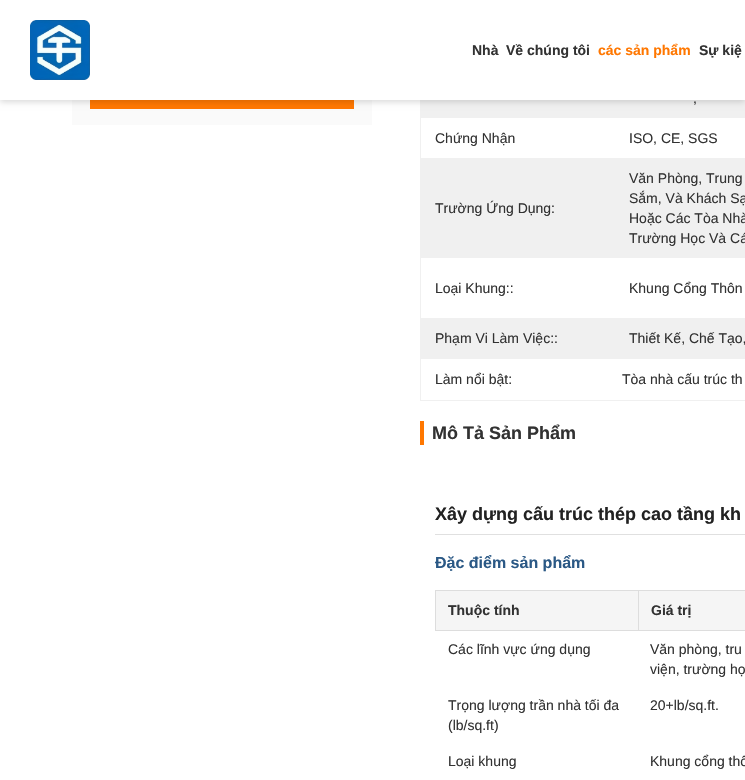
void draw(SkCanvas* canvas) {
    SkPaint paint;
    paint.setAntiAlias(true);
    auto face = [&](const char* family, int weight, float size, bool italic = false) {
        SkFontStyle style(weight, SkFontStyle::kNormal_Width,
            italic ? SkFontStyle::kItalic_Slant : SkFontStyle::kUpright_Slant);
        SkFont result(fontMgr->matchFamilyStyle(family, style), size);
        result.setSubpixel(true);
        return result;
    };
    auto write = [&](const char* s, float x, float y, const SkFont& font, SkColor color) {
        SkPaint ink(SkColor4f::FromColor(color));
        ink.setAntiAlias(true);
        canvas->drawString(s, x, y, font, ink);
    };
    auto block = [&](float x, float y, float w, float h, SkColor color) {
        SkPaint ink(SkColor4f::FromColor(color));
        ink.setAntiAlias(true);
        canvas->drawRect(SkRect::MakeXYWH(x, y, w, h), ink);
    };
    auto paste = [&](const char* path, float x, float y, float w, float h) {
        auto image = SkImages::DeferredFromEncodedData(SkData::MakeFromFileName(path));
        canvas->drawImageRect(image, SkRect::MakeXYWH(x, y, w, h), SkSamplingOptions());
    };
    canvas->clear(SK_ColorWHITE);
    block(72, 100, 300, 25, SkColorSetRGB(250, 250, 250));
    block(90, 100, 264, 9, SkColorSetRGB(255, 119, 0));
    paint.setStyle(SkPaint::kStroke_Style);
    paint.setStrokeWidth(1);
    paint.setColor(SkColorSetRGB(240, 240, 240));
    canvas->drawRect(SkRect::MakeXYWH(420.5f, 77.5f, 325, 281), paint);
    block(421, 100, 324, 18, SkColorSetRGB(240, 240, 240));
    paint.setStyle(SkPaint::kFill_Style);
    paint.setColor(SkColorSetARGB(38, 0, 0, 0));
    paint.setMaskFilter(SkMaskFilter::MakeBlur(kNormal_SkBlurStyle, 3));
    canvas->drawRect(SkRect::MakeXYWH(0, 2, 745, 100), paint);
    paint.setMaskFilter(nullptr);
    block(0, 0, 745, 100, SK_ColorWHITE);
    paste("pic1.png", 30, 20, 60, 60);
    auto kFont1 = face("Liberation Sans", 700, 14);
    write("Nhà", 472, 55, kFont1, SkColorSetRGB(50, 50, 50));
    write("Về chúng tôi", 506, 55, kFont1, SkColorSetRGB(50, 50, 50));
    write("các sản phẩm", 598, 55, kFont1, SkColorSetRGB(255, 119, 0));
    write("Sự kiệ", 699, 55, kFont1, SkColorSetRGB(50, 50, 50));
    auto kFont2 = face("Liberation Sans", 400, 14);
    write(",", 693, 103, kFont2, SkColorSetRGB(50, 50, 50));
    write("Chứng Nhận", 435, 143, kFont2, SkColorSetRGB(50, 50, 50));
    write("ISO, CE, SGS", 629, 143, kFont2, SkColorSetRGB(50, 50, 50));
    block(421, 158, 324, 100, SkColorSetRGB(240, 240, 240));
    write("Trường Ứng Dụng:", 435, 213, kFont2, SkColorSetRGB(50, 50, 50));
    write("Văn Phòng, Trung", 629, 183, kFont2, SkColorSetRGB(50, 50, 50));
    write("Sắm, Và Khách Sạ", 629, 203, kFont2, SkColorSetRGB(50, 50, 50));
    write("Hoặc Các Tòa Nhà", 629, 223, kFont2, SkColorSetRGB(50, 50, 50));
    write("Trường Học Và Cá", 629, 243, kFont2, SkColorSetRGB(50, 50, 50));
    write("Loại Khung::", 435, 293, kFont2, SkColorSetRGB(50, 50, 50));
    write("Khung Cổng Thôn", 629, 293, kFont2, SkColorSetRGB(50, 50, 50));
    block(421, 318, 324, 40, SkColorSetRGB(240, 240, 240));
    write("Phạm Vi Làm Việc::", 435, 343, kFont2, SkColorSetRGB(50, 50, 50));
    write("Thiết Kế, Chế Tạo,", 629, 343, kFont2, SkColorSetRGB(50, 50, 50));
    block(420, 400, 325, 1, SkColorSetRGB(240, 240, 240));
    block(420, 359, 1, 42, SkColorSetRGB(240, 240, 240));
    write("Làm nổi bật:", 435, 384, kFont2, SkColorSetRGB(50, 50, 50));
    write("Tòa nhà cấu trúc th", 622, 384, kFont2, SkColorSetRGB(50, 50, 50));
    block(420, 421, 4, 24, SkColorSetRGB(255, 119, 0));
    auto kFont3 = face("Liberation Sans", 700, 18);
    write("Mô Tả Sản Phẩm", 432, 439, kFont3, SkColorSetRGB(50, 50, 50));
    block(435, 534, 310, 1, SkColorSetRGB(224, 224, 224));
    write("Xây dựng cấu trúc thép cao tầng kh", 435, 520, kFont3, SkColorSetRGB(34, 34, 34));
    auto kFont4 = face("Liberation Sans", 700, 16);
    write("Đặc điểm sản phẩm", 435, 568, kFont4, SkColorSetRGB(42, 88, 133));
    block(436, 591, 202, 39, SkColorSetRGB(245, 245, 245));
    block(638, 590, 107, 1, SkColorSetRGB(221, 221, 221));
    block(638, 630, 107, 1, SkColorSetRGB(221, 221, 221));
    block(638, 590, 1, 41, SkColorSetRGB(221, 221, 221));
    block(435, 590, 204, 1, SkColorSetRGB(221, 221, 221));
    block(435, 630, 204, 1, SkColorSetRGB(221, 221, 221));
    block(435, 590, 1, 41, SkColorSetRGB(221, 221, 221));
    write("Thuộc tính", 448, 615, kFont1, SkColorSetRGB(50, 50, 50));
    block(639, 591, 106, 39, SkColorSetRGB(245, 245, 245));
    write("Giá trị", 651, 615, kFont1, SkColorSetRGB(50, 50, 50));
    write("Các lĩnh vực ứng dụng", 448, 654, kFont2, SkColorSetRGB(50, 50, 50));
    write("Văn phòng, tru", 650, 654, kFont2, SkColorSetRGB(50, 50, 50));
    write("viện, trường họ", 650, 674, kFont2, SkColorSetRGB(50, 50, 50));
    write("Trọng lượng trần nhà tối đa", 448, 710, kFont2, SkColorSetRGB(50, 50, 50));
    write("(lb/sq.ft)", 448, 730, kFont2, SkColorSetRGB(50, 50, 50));
    write("20+lb/sq.ft.", 650, 710, kFont2, SkColorSetRGB(50, 50, 50));
    write("Loại khung", 448, 766, kFont2, SkColorSetRGB(50, 50, 50));
    write("Khung cổng thô", 650, 766, kFont2, SkColorSetRGB(50, 50, 50));
}
